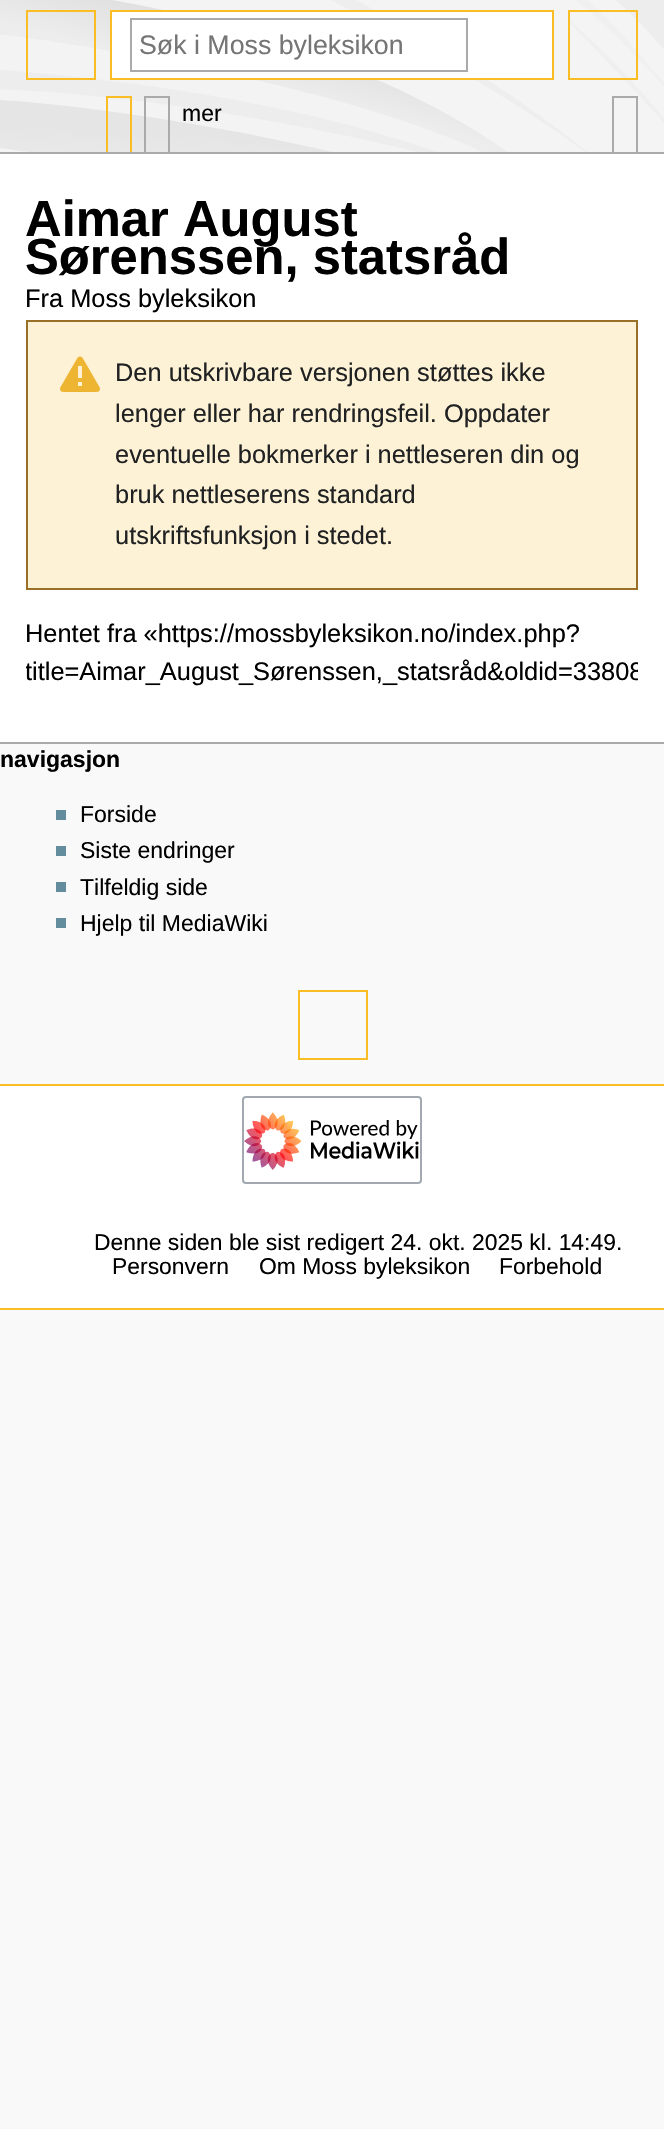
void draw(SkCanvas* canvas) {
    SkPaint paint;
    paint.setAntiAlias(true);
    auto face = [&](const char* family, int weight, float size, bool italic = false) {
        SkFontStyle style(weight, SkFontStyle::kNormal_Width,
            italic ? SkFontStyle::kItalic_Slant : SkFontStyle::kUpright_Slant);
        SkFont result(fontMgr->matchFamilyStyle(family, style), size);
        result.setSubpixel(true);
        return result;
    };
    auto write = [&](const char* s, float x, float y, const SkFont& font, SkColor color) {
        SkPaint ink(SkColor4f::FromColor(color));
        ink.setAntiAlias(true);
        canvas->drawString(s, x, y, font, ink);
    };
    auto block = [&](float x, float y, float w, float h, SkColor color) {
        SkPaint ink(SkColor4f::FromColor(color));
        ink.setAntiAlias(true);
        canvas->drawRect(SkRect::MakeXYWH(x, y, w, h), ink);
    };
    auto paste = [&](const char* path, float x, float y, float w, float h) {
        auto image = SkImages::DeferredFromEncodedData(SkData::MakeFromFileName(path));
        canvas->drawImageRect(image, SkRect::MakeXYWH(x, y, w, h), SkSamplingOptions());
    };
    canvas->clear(SkColorSetRGB(249, 249, 249));
    paste("pic1.png", 0, 0, 664, 152);
    paint.setStyle(SkPaint::kStroke_Style);
    paint.setStrokeWidth(2);
    paint.setColor(SkColorSetRGB(250, 189, 35));
    canvas->drawRect(SkRect::MakeXYWH(27, 11, 68, 68), paint);
    canvas->drawRect(SkRect::MakeXYWH(569, 11, 68, 68), paint);
    paint.setStyle(SkPaint::kFill_Style);
    paint.setColor(SK_ColorWHITE);
    canvas->drawRect(SkRect::MakeXYWH(111, 11, 442, 68), paint);
    paint.setStyle(SkPaint::kStroke_Style);
    paint.setColor(SkColorSetRGB(250, 189, 35));
    canvas->drawRect(SkRect::MakeXYWH(111, 11, 442, 68), paint);
    paint.setColor(SkColorSetRGB(170, 170, 170));
    canvas->drawRect(SkRect::MakeXYWH(131, 19, 336, 52), paint);
    auto kFont1 = face("Liberation Sans", 400, 26.75f);
    write("Søk i Moss byleksikon", 139, 54, kFont1, SkColorSetRGB(117, 117, 117));
    auto kFont2 = face("Liberation Sans", 700, 23);
    write("navigasjon", 0, 767, kFont2, SK_ColorBLACK);
    block(56, 810, 10, 10, SkColorSetRGB(99, 140, 156));
    auto kFont3 = face("Liberation Sans", 400, 23);
    write("Forside", 80, 822, kFont3, SK_ColorBLACK);
    block(56, 846, 10, 10, SkColorSetRGB(99, 140, 156));
    write("Siste endringer", 80, 858, kFont3, SK_ColorBLACK);
    block(56, 882, 10, 10, SkColorSetRGB(99, 140, 156));
    write("Tilfeldig side", 80, 895, kFont3, SK_ColorBLACK);
    block(56, 918, 10, 10, SkColorSetRGB(99, 140, 156));
    write("Hjelp til MediaWiki", 80, 931, kFont3, SK_ColorBLACK);
    block(106, 96, 26, 2, SkColorSetRGB(250, 189, 35));
    block(130, 96, 2, 58, SkColorSetRGB(250, 189, 35));
    block(106, 96, 2, 58, SkColorSetRGB(250, 189, 35));
    block(144, 96, 26, 2, SkColorSetRGB(170, 170, 170));
    block(168, 96, 2, 58, SkColorSetRGB(170, 170, 170));
    block(144, 96, 2, 58, SkColorSetRGB(170, 170, 170));
    write("mer", 182, 121, kFont3, SK_ColorBLACK);
    block(612, 96, 26, 2, SkColorSetRGB(170, 170, 170));
    block(636, 96, 2, 58, SkColorSetRGB(170, 170, 170));
    block(612, 96, 2, 58, SkColorSetRGB(170, 170, 170));
    paint.setColor(SkColorSetRGB(250, 189, 35));
    canvas->drawRect(SkRect::MakeXYWH(299, 991, 68, 68), paint);
    block(0, 154, 664, 588, SK_ColorWHITE);
    block(0, 152, 664, 2, SkColorSetRGB(170, 170, 170));
    block(0, 742, 664, 2, SkColorSetRGB(170, 170, 170));
    auto kFont4 = face("Liberation Sans", 700, 50.75f);
    write("Aimar August", 25, 236, kFont4, SK_ColorBLACK);
    write("Sørenssen, statsråd", 25, 274, kFont4, SK_ColorBLACK);
    auto kFont5 = face("Liberation Sans", 400, 25.4f);
    write("Fra Moss byleksikon", 25, 307, kFont5, SK_ColorBLACK);
    paint.setStyle(SkPaint::kFill_Style);
    paint.setColor(SkColorSetRGB(253, 242, 213));
    canvas->drawRect(SkRect::MakeXYWH(27, 321, 610, 268), paint);
    paint.setStyle(SkPaint::kStroke_Style);
    paint.setColor(SkColorSetRGB(152, 112, 39));
    canvas->drawRect(SkRect::MakeXYWH(27, 321, 610, 268), paint);
    paste("pic2.png", 60, 356, 40, 36);
    write("Den utskrivbare versjonen støttes ikke", 115, 381, kFont5, SkColorSetRGB(32, 33, 34));
    write("lenger eller har rendringsfeil. Oppdater", 115, 422, kFont5, SkColorSetRGB(32, 33, 34));
    write("eventuelle bokmerker i nettleseren din og", 115, 463, kFont5, SkColorSetRGB(32, 33, 34));
    write("bruk nettleserens standard", 115, 503, kFont5, SkColorSetRGB(32, 33, 34));
    write("utskriftsfunksjon i stedet.", 115, 544, kFont5, SkColorSetRGB(32, 33, 34));
    write("Hentet fra «https://mossbyleksikon.no/index.php?", 25, 642, kFont5, SK_ColorBLACK);
    canvas->save();
    canvas->clipRect(SkRect::MakeXYWH(26, 282, 612, 436));
    write("title=Aimar_August_Sørenssen,_statsråd&oldid=33808", 25, 680, kFont5, SK_ColorBLACK);
    canvas->restore();
    block(0, 1086, 664, 222, SK_ColorWHITE);
    block(0, 1084, 664, 2, SkColorSetRGB(250, 189, 35));
    block(0, 1308, 664, 2, SkColorSetRGB(250, 189, 35));
    paint.setColor(SkColorSetRGB(162, 169, 177));
    canvas->drawRoundRect(SkRect::MakeXYWH(243, 1097, 178, 86), 3, 3, paint);
    paste("pic3.png", 244, 1112, 175, 58);
    auto kFont6 = face("Liberation Sans", 400, 22.9f);
    write("Denne siden ble sist redigert 24. okt. 2025 kl. 14:49.", 94, 1250, kFont6, SK_ColorBLACK);
    write("Personvern", 112, 1274, kFont6, SK_ColorBLACK);
    write("Om Moss byleksikon", 259, 1274, kFont6, SK_ColorBLACK);
    write("Forbehold", 499, 1274, kFont6, SK_ColorBLACK);
}
